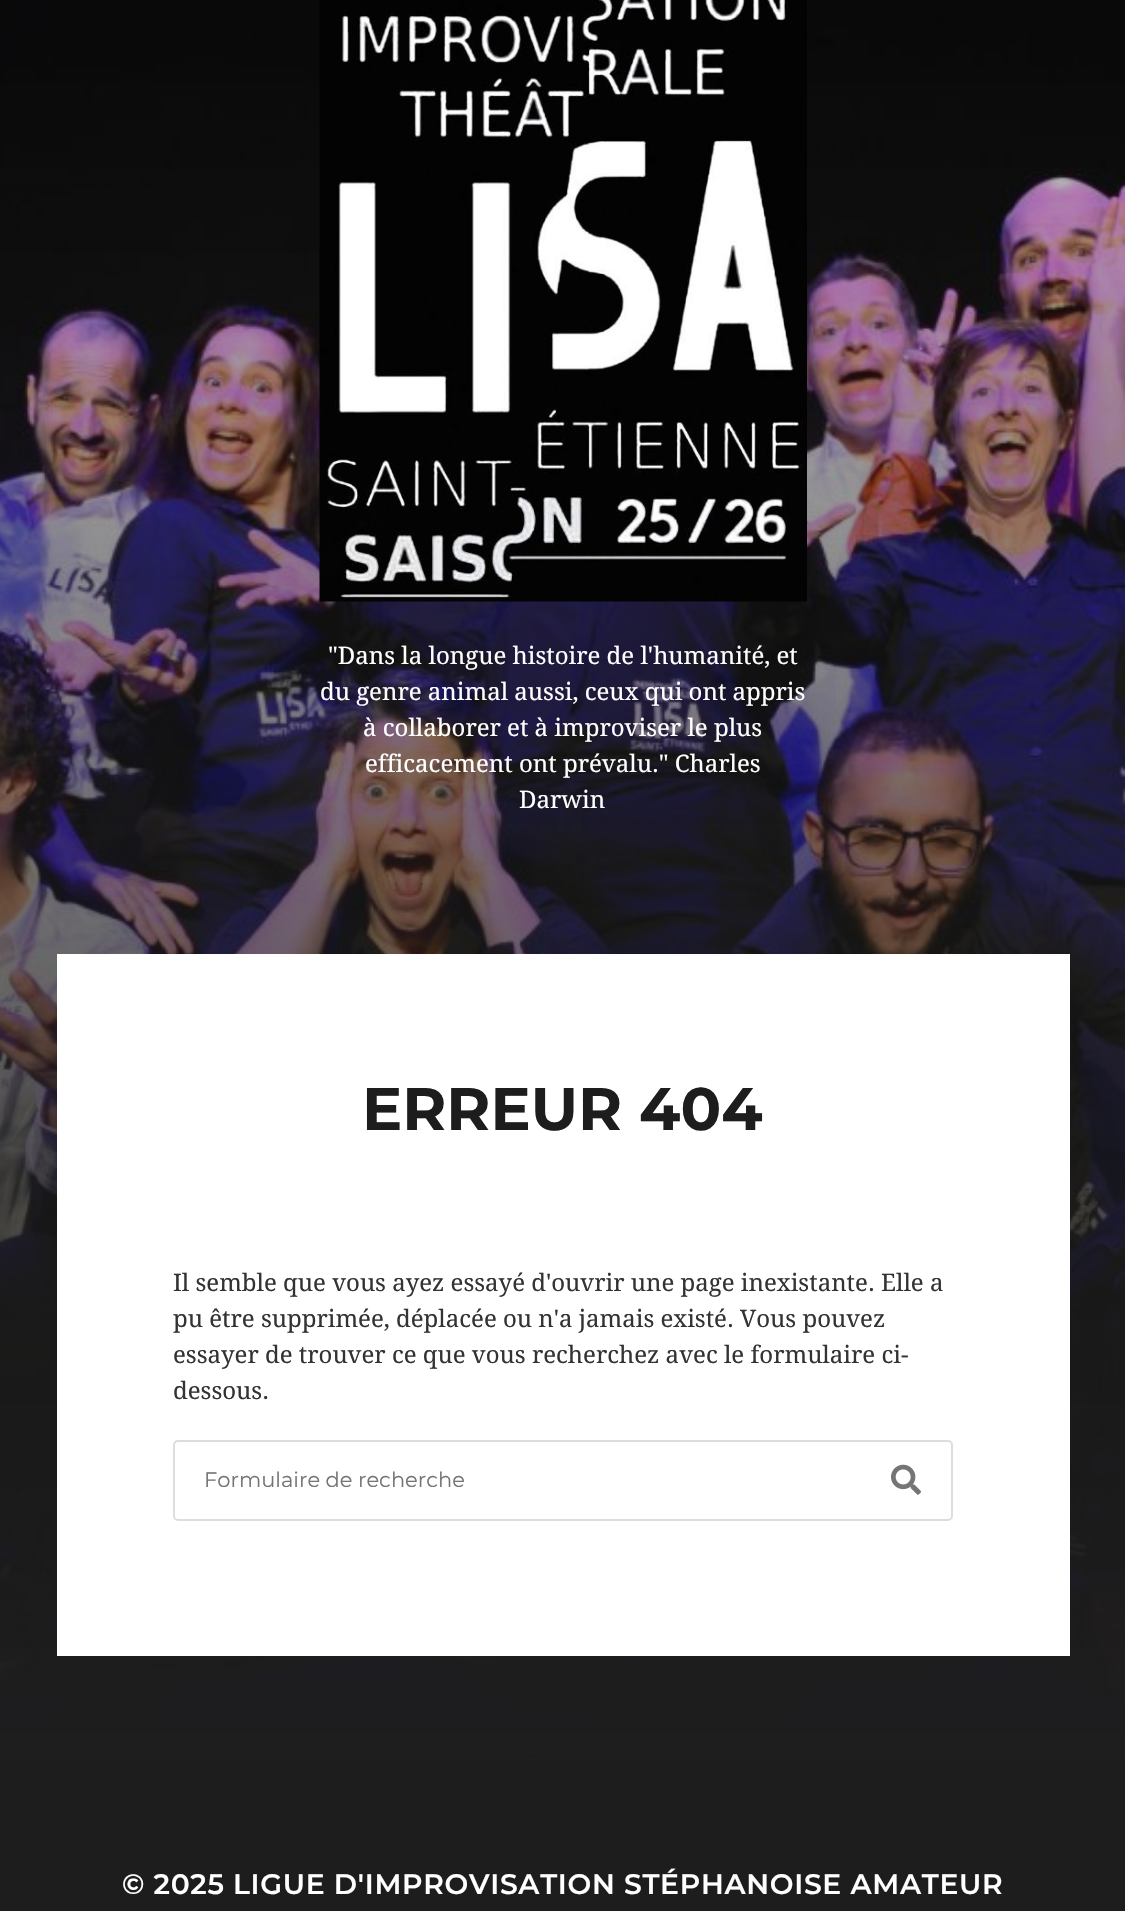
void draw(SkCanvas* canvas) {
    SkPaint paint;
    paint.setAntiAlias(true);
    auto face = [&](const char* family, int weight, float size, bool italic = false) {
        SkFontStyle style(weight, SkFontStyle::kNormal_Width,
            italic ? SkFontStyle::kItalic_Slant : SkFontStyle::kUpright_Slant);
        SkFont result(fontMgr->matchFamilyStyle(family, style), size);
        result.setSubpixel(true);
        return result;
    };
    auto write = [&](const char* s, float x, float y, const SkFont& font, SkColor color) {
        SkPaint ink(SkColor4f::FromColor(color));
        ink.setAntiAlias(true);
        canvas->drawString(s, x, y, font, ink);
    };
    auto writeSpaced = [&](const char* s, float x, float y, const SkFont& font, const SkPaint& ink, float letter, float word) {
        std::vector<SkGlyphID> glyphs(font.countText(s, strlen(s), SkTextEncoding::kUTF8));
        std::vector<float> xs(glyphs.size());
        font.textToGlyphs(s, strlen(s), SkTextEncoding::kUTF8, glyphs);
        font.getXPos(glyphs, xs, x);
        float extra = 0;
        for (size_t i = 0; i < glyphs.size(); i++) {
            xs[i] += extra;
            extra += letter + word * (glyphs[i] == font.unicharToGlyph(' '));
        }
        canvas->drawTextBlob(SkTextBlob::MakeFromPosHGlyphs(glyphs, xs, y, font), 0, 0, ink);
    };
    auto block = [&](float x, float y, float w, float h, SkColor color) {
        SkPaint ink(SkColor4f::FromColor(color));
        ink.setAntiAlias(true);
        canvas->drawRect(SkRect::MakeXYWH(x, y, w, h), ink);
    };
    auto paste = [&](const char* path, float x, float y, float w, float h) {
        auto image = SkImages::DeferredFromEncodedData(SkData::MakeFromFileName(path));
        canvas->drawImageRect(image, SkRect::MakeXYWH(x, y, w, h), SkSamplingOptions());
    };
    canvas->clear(SkColorSetRGB(29, 29, 29));
    paste("pic1.png", 0, 0, 1125, 1761);
    {
        const SkColor colors[] = {SkColorSetARGB(51, 29, 29, 29), SkColorSetRGB(29, 29, 29)};
        const float stops[] = {0, 1};
        const SkPoint ends[] = {{562, -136}, {563, 1775}};
        paint.setShader(SkGradientShader::MakeLinear(ends, colors, stops, 2, SkTileMode::kClamp));
        paint.setAlpha(255);
    }
    canvas->drawRect(SkRect::MakeXYWH(0, 0, 1125, 1761), paint);
    paste("pic2.png", 319, 0, 488, 602);
    auto kFont1 = face("Droid Serif", 400, 24);
    write("\"Dans la longue histoire de l'humanité, et", 328, 664, kFont1, SK_ColorWHITE);
    write("du genre animal aussi, ceux qui ont appris", 320, 700, kFont1, SK_ColorWHITE);
    write("à collaborer et à improviser le plus", 363, 736, kFont1, SK_ColorWHITE);
    write("efficacement ont prévalu.\" Charles", 365, 772, kFont1, SK_ColorWHITE);
    write("Darwin", 519, 808, kFont1, SK_ColorWHITE);
    block(57, 954, 1013, 702, SK_ColorWHITE);
    auto kFont2 = face("Montserrat", 100, 60);
    write("ERREUR 404", 362, 1130, kFont2, SkColorSetRGB(29, 29, 29));
    write("Il semble que vous ayez essayé d'ouvrir une page inexistante. Elle a", 173, 1291, kFont1, SkColorSetRGB(51, 51, 51));
    write("pu être supprimée, déplacée ou n'a jamais existé. Vous pouvez", 173, 1327, kFont1, SkColorSetRGB(51, 51, 51));
    write("essayer de trouver ce que vous recherchez avec le formulaire ci-", 173, 1363, kFont1, SkColorSetRGB(51, 51, 51));
    write("dessous.", 173, 1399, kFont1, SkColorSetRGB(51, 51, 51));
    paint.setStyle(SkPaint::kStroke_Style);
    paint.setStrokeWidth(2);
    paint.setShader(nullptr);
    paint.setColor(SkColorSetRGB(221, 221, 221));
    canvas->drawRoundRect(SkRect::MakeXYWH(174, 1441, 778, 79), 4, 4, paint);
    auto kFont3 = face("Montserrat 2", 100, 21);
    write("Formulaire de recherche", 204, 1487, kFont3, SkColorSetRGB(117, 117, 117));
    paste("pic3.png", 891, 1464, 30, 31);
    auto kFont4 = face("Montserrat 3", 100, 28.2f);
    paint.setStyle(SkPaint::kFill_Style);
    paint.setColor(SK_ColorWHITE);
    writeSpaced("© 2025", 122, 1894, kFont4, paint, 0.7f, 0);
    writeSpaced("LIGUE D'IMPROVISATION STÉPHANOISE AMATEUR", 233, 1894, kFont4, paint, 0.7f, 0);
}
